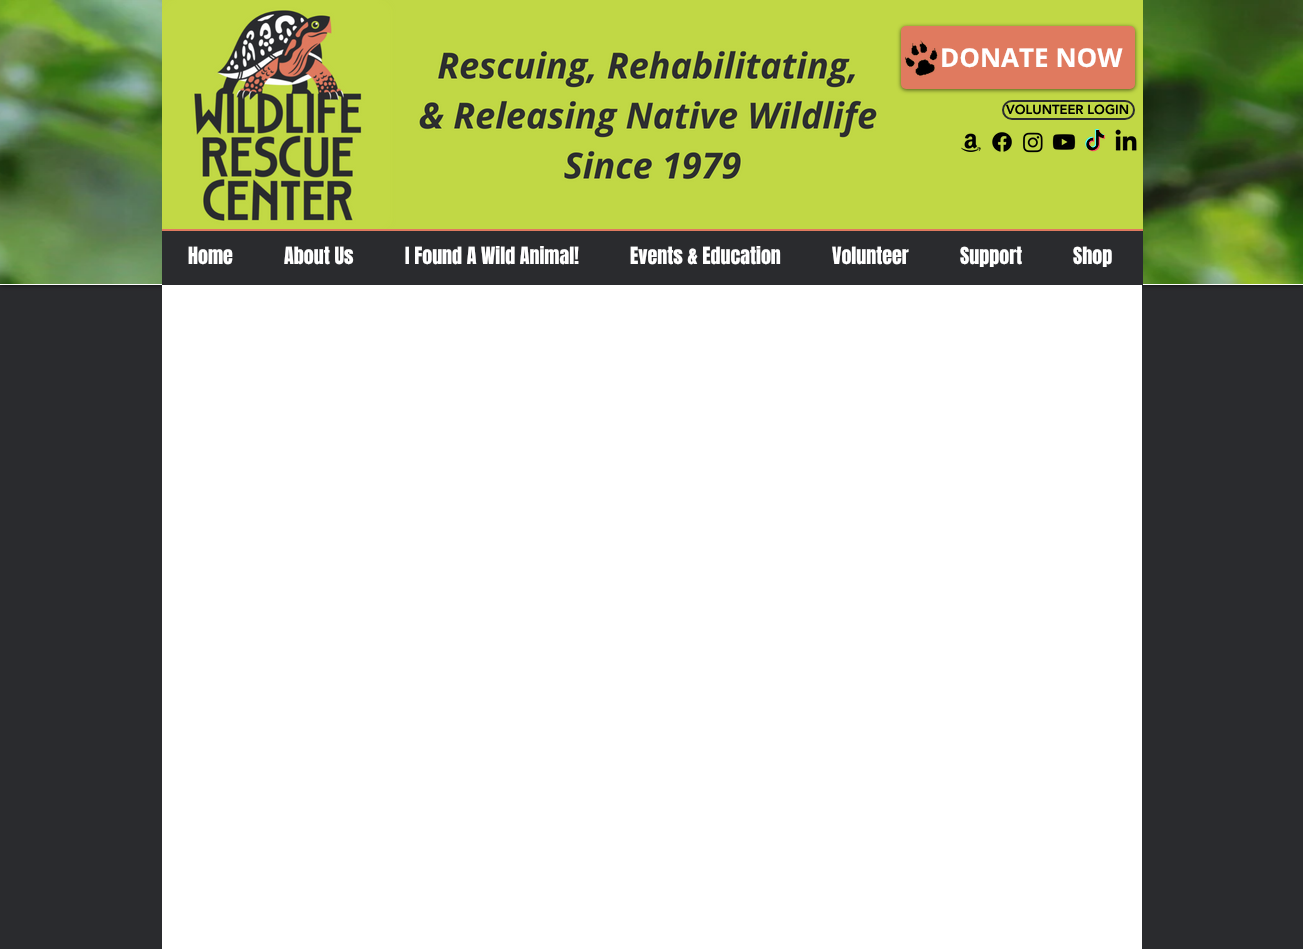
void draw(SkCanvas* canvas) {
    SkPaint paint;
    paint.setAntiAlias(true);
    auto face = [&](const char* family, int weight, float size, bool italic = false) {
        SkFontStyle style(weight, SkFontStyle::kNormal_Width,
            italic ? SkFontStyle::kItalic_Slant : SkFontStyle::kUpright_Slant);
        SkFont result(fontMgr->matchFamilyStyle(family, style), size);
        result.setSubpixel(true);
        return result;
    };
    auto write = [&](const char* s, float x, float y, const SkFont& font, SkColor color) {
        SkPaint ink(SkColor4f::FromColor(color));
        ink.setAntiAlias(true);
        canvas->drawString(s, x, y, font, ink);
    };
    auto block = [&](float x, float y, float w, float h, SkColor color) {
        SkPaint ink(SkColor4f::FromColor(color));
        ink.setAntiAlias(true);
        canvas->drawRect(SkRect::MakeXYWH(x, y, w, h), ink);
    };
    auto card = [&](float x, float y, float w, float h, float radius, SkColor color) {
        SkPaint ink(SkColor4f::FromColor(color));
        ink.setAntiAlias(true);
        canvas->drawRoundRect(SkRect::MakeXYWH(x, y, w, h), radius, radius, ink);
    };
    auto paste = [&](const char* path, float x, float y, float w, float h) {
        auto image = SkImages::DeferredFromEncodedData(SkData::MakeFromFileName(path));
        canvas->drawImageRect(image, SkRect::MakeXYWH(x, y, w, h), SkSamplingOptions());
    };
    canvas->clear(SkColorSetRGB(42, 43, 46));
    paint.setColor(SkColorSetARGB(179, 0, 0, 0));
    paint.setMaskFilter(SkMaskFilter::MakeBlur(kNormal_SkBlurStyle, 2.5f));
    canvas->drawRect(SkRect::MakeXYWH(0, 0, 1303, 285), paint);
    paint.setMaskFilter(nullptr);
    block(0, 284, 1303, 1, SK_ColorWHITE);
    paste("pic1.png", 0, 0, 1303, 284);
    paste("pic2.png", 162, 0, 981, 229);
    paint.setColor(SkColorSetARGB(153, 0, 0, 0));
    paint.setMaskFilter(SkMaskFilter::MakeBlur(kNormal_SkBlurStyle, 2));
    canvas->drawRoundRect(SkRect::MakeXYWH(901, 27, 234, 63), 5, 5, paint);
    paint.setMaskFilter(nullptr);
    card(901, 26, 234, 63, 5, SkColorSetRGB(224, 122, 95));
    paste("pic3.png", 905, 40, 33, 38);
    auto kFont1 = face("Open Sans", 700, 26);
    write("DONATE NOW", 940, 67, kFont1, SK_ColorWHITE);
    paint.setStyle(SkPaint::kStroke_Style);
    paint.setStrokeWidth(2);
    paint.setColor(SkColorSetRGB(42, 43, 46));
    canvas->drawRoundRect(SkRect::MakeXYWH(1003, 101, 131, 18), 9, 9, paint);
    auto kFont2 = face("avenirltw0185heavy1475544", 900, 13);
    write("VOLUNTEER LOGIN", 1006, 114, kFont2, SK_ColorBLACK);
    paste("pic4.png", 961, 133, 20, 19);
    paste("pic5.png", 992, 132, 20, 20);
    paste("pic6.png", 1023, 132, 20, 21);
    paste("pic7.png", 1052, 134, 24, 16);
    paste("pic8.png", 1085, 129, 20, 23);
    paste("pic9.png", 1115, 129, 22, 22);
    block(162, 229, 981, 2, SkColorSetRGB(224, 122, 95));
    block(162, 231, 981, 54, SkColorSetRGB(42, 43, 46));
    auto kFont3 = face("Anton", 400, 20);
    write("Home", 188, 264, kFont3, SK_ColorWHITE);
    write("About Us", 284, 264, kFont3, SK_ColorWHITE);
    write("I Found A Wild Animal!", 405, 264, kFont3, SK_ColorWHITE);
    write("Events & Education", 630, 264, kFont3, SK_ColorWHITE);
    write("Volunteer", 832, 264, kFont3, SK_ColorWHITE);
    write("Support", 960, 264, kFont3, SK_ColorWHITE);
    write("Shop", 1073, 264, kFont3, SK_ColorWHITE);
    block(162, 285, 980, 664, SK_ColorWHITE);
}
